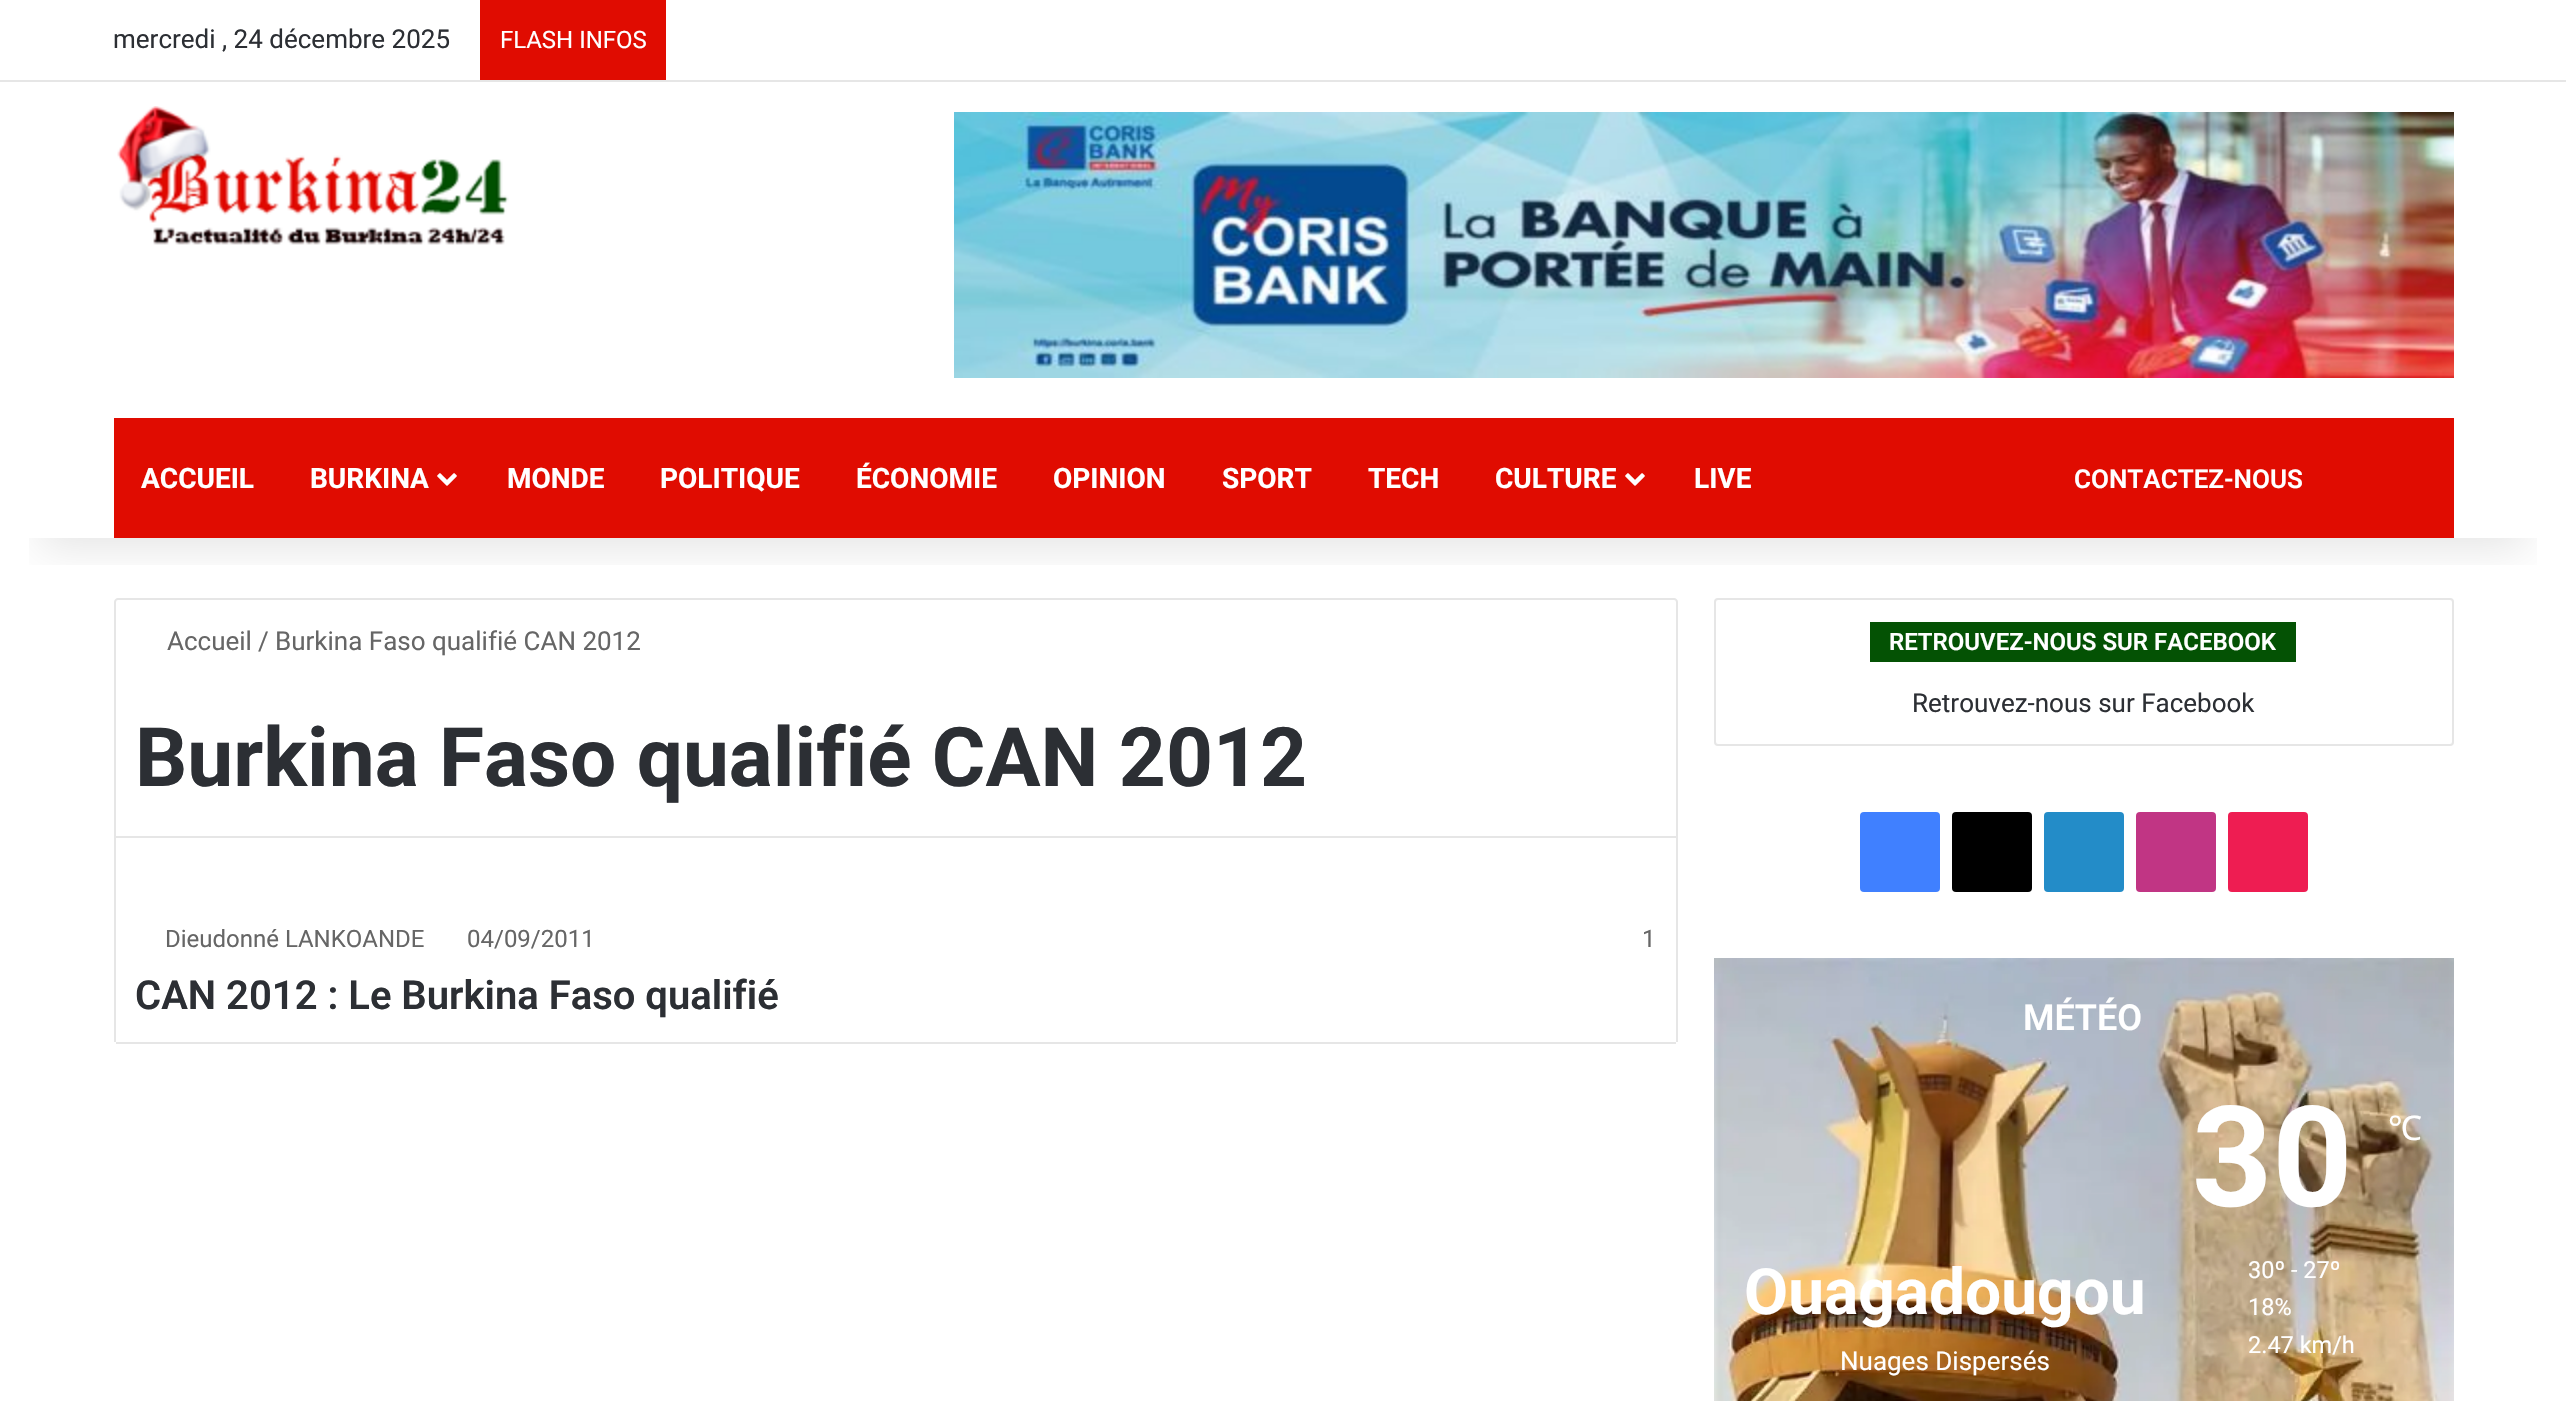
void draw(SkCanvas* canvas) {
    SkPaint paint;
    paint.setAntiAlias(true);
    auto face = [&](const char* family, int weight, float size, bool italic = false) {
        SkFontStyle style(weight, SkFontStyle::kNormal_Width,
            italic ? SkFontStyle::kItalic_Slant : SkFontStyle::kUpright_Slant);
        SkFont result(fontMgr->matchFamilyStyle(family, style), size);
        result.setSubpixel(true);
        return result;
    };
    auto write = [&](const char* s, float x, float y, const SkFont& font, SkColor color) {
        SkPaint ink(SkColor4f::FromColor(color));
        ink.setAntiAlias(true);
        canvas->drawString(s, x, y, font, ink);
    };
    auto block = [&](float x, float y, float w, float h, SkColor color) {
        SkPaint ink(SkColor4f::FromColor(color));
        ink.setAntiAlias(true);
        canvas->drawRect(SkRect::MakeXYWH(x, y, w, h), ink);
    };
    auto card = [&](float x, float y, float w, float h, float radius, SkColor color) {
        SkPaint ink(SkColor4f::FromColor(color));
        ink.setAntiAlias(true);
        canvas->drawRoundRect(SkRect::MakeXYWH(x, y, w, h), radius, radius, ink);
    };
    auto paste = [&](const char* path, float x, float y, float w, float h) {
        auto image = SkImages::DeferredFromEncodedData(SkData::MakeFromFileName(path));
        canvas->drawImageRect(image, SkRect::MakeXYWH(x, y, w, h), SkSamplingOptions());
    };
    canvas->clear(SK_ColorWHITE);
    paint.setStyle(SkPaint::kStroke_Style);
    paint.setStrokeWidth(2);
    paint.setColor(SkColorSetRGB(230, 230, 230));
    canvas->drawPath(SkPathBuilder().moveTo(118, 599).lineTo(1674, 599).cubicTo(1675.5f, 599, 1677, 600.5f, 1677, 602).lineTo(1677, 837).lineTo(115, 837).lineTo(115, 602).cubicTo(115, 600.5f, 116.5f, 599, 118, 599).close().detach(), paint);
    canvas->drawRoundRect(SkRect::MakeXYWH(1715, 599, 738, 146), 3, 3, paint);
    canvas->save();
    canvas->clipRect(SkRect::MakeXYWH(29, 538, 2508, 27));
    paint.setStyle(SkPaint::kFill_Style);
    paint.setColor(SkColorSetARGB(26, 0, 0, 0));
    paint.setMaskFilter(SkMaskFilter::MakeBlur(kNormal_SkBlurStyle, 20));
    canvas->drawRect(SkRect::MakeXYWH(40, 90, 2486, 458), paint);
    paint.setMaskFilter(nullptr);
    canvas->restore();
    block(0, 80, 2566, 2, SkColorSetRGB(230, 230, 230));
    auto kFont1 = face("Roboto", 400, 26);
    write("mercredi , 24 décembre 2025", 113, 48, kFont1, SkColorSetRGB(44, 47, 52));
    block(480, 0, 186, 80, SkColorSetRGB(224, 12, 1));
    auto kFont2 = face("Roboto", 400, 24);
    write("FLASH INFOS", 500, 48, kFont2, SK_ColorWHITE);
    paste("pic1.png", 117, 106, 392, 139);
    paste("pic2.png", 954, 112, 1500, 266);
    block(114, 418, 2340, 120, SkColorSetRGB(224, 12, 1));
    auto kFont3 = face("Roboto", 700, 28);
    write("ACCUEIL", 141, 488, kFont3, SK_ColorWHITE);
    write("BURKINA", 310, 488, kFont3, SK_ColorWHITE);
    paste("pic3.png", 437, 473, 20, 13);
    write("MONDE", 507, 488, kFont3, SK_ColorWHITE);
    write("POLITIQUE", 660, 488, kFont3, SK_ColorWHITE);
    write("ÉCONOMIE", 856, 488, kFont3, SK_ColorWHITE);
    write("OPINION", 1053, 488, kFont3, SK_ColorWHITE);
    write("SPORT", 1222, 488, kFont3, SK_ColorWHITE);
    write("TECH", 1368, 488, kFont3, SK_ColorWHITE);
    write("CULTURE", 1495, 488, kFont3, SK_ColorWHITE);
    paste("pic3.png", 1625, 473, 20, 13);
    write("LIVE", 1694, 488, kFont3, SK_ColorWHITE);
    auto kFont4 = face("Roboto", 600, 26);
    write("CONTACTEZ-NOUS", 2074, 488, kFont4, SK_ColorWHITE);
    write("Accueil", 167, 650, kFont1, SkColorSetRGB(102, 102, 102));
    write("/", 258, 650, kFont1, SkColorSetRGB(102, 102, 102));
    write("Burkina Faso qualifié CAN 2012", 275, 650, kFont1, SkColorSetRGB(102, 102, 102));
    auto kFont5 = face("Roboto", 700, 82);
    write("Burkina Faso qualifié CAN 2012", 135, 786, kFont5, SkColorSetRGB(44, 47, 52));
    block(1676, 838, 2, 204, SkColorSetRGB(230, 230, 230));
    block(116, 1042, 1560, 2, SkColorSetRGB(230, 230, 230));
    block(114, 838, 2, 204, SkColorSetRGB(230, 230, 230));
    write("Dieudonné LANKOANDE", 165, 947, kFont2, SkColorSetRGB(102, 102, 102));
    write("04/09/2011", 467, 947, kFont2, SkColorSetRGB(102, 102, 102));
    write("1", 1642, 947, kFont2, SkColorSetRGB(102, 102, 102));
    auto kFont6 = face("Roboto", 600, 40);
    write("CAN 2012 : Le Burkina Faso qualifié", 135, 1009, kFont6, SkColorSetRGB(44, 47, 52));
    block(1870, 622, 426, 40, SkColorSetRGB(4, 82, 4));
    auto kFont7 = face("Roboto", 600, 24);
    write("RETROUVEZ-NOUS SUR FACEBOOK", 1889, 650, kFont7, SK_ColorWHITE);
    write("Retrouvez-nous sur Facebook", 1912, 712, kFont1, SkColorSetRGB(44, 47, 52));
    card(1860, 812, 80, 80, 4, SkColorSetRGB(64, 128, 255));
    card(1952, 812, 80, 80, 4, SK_ColorBLACK);
    card(2044, 812, 80, 80, 4, SkColorSetRGB(35, 140, 200));
    card(2136, 812, 80, 80, 4, SkColorSetRGB(193, 53, 132));
    card(2228, 812, 80, 80, 4, SkColorSetRGB(238, 29, 82));
    paste("pic4.png", 1714, 958, 740, 443);
    auto kFont8 = face("Roboto", 600, 36);
    write("MÉTÉO", 2023, 1030, kFont8, SK_ColorWHITE);
    auto kFont9 = face("Roboto", 700, 64);
    write("Ouagadougou", 1744, 1314, kFont9, SK_ColorWHITE);
    write("Nuages Dispersés", 1840, 1370, kFont1, SK_ColorWHITE);
    auto kFont10 = face("Roboto", 700, 140);
    write("30", 2192, 1206, kFont10, SK_ColorWHITE);
    auto kFont11 = face("Noto Sans", 400, 34);
    write("℃", 2388, 1140, kFont11, SK_ColorWHITE);
    auto kFont12 = face("Roboto", 400, 23.5f);
    write("30º - 27º", 2248, 1278, kFont12, SK_ColorWHITE);
    write("18%", 2248, 1315, kFont12, SK_ColorWHITE);
    write("2.47 km/h", 2248, 1353, kFont12, SK_ColorWHITE);
}
